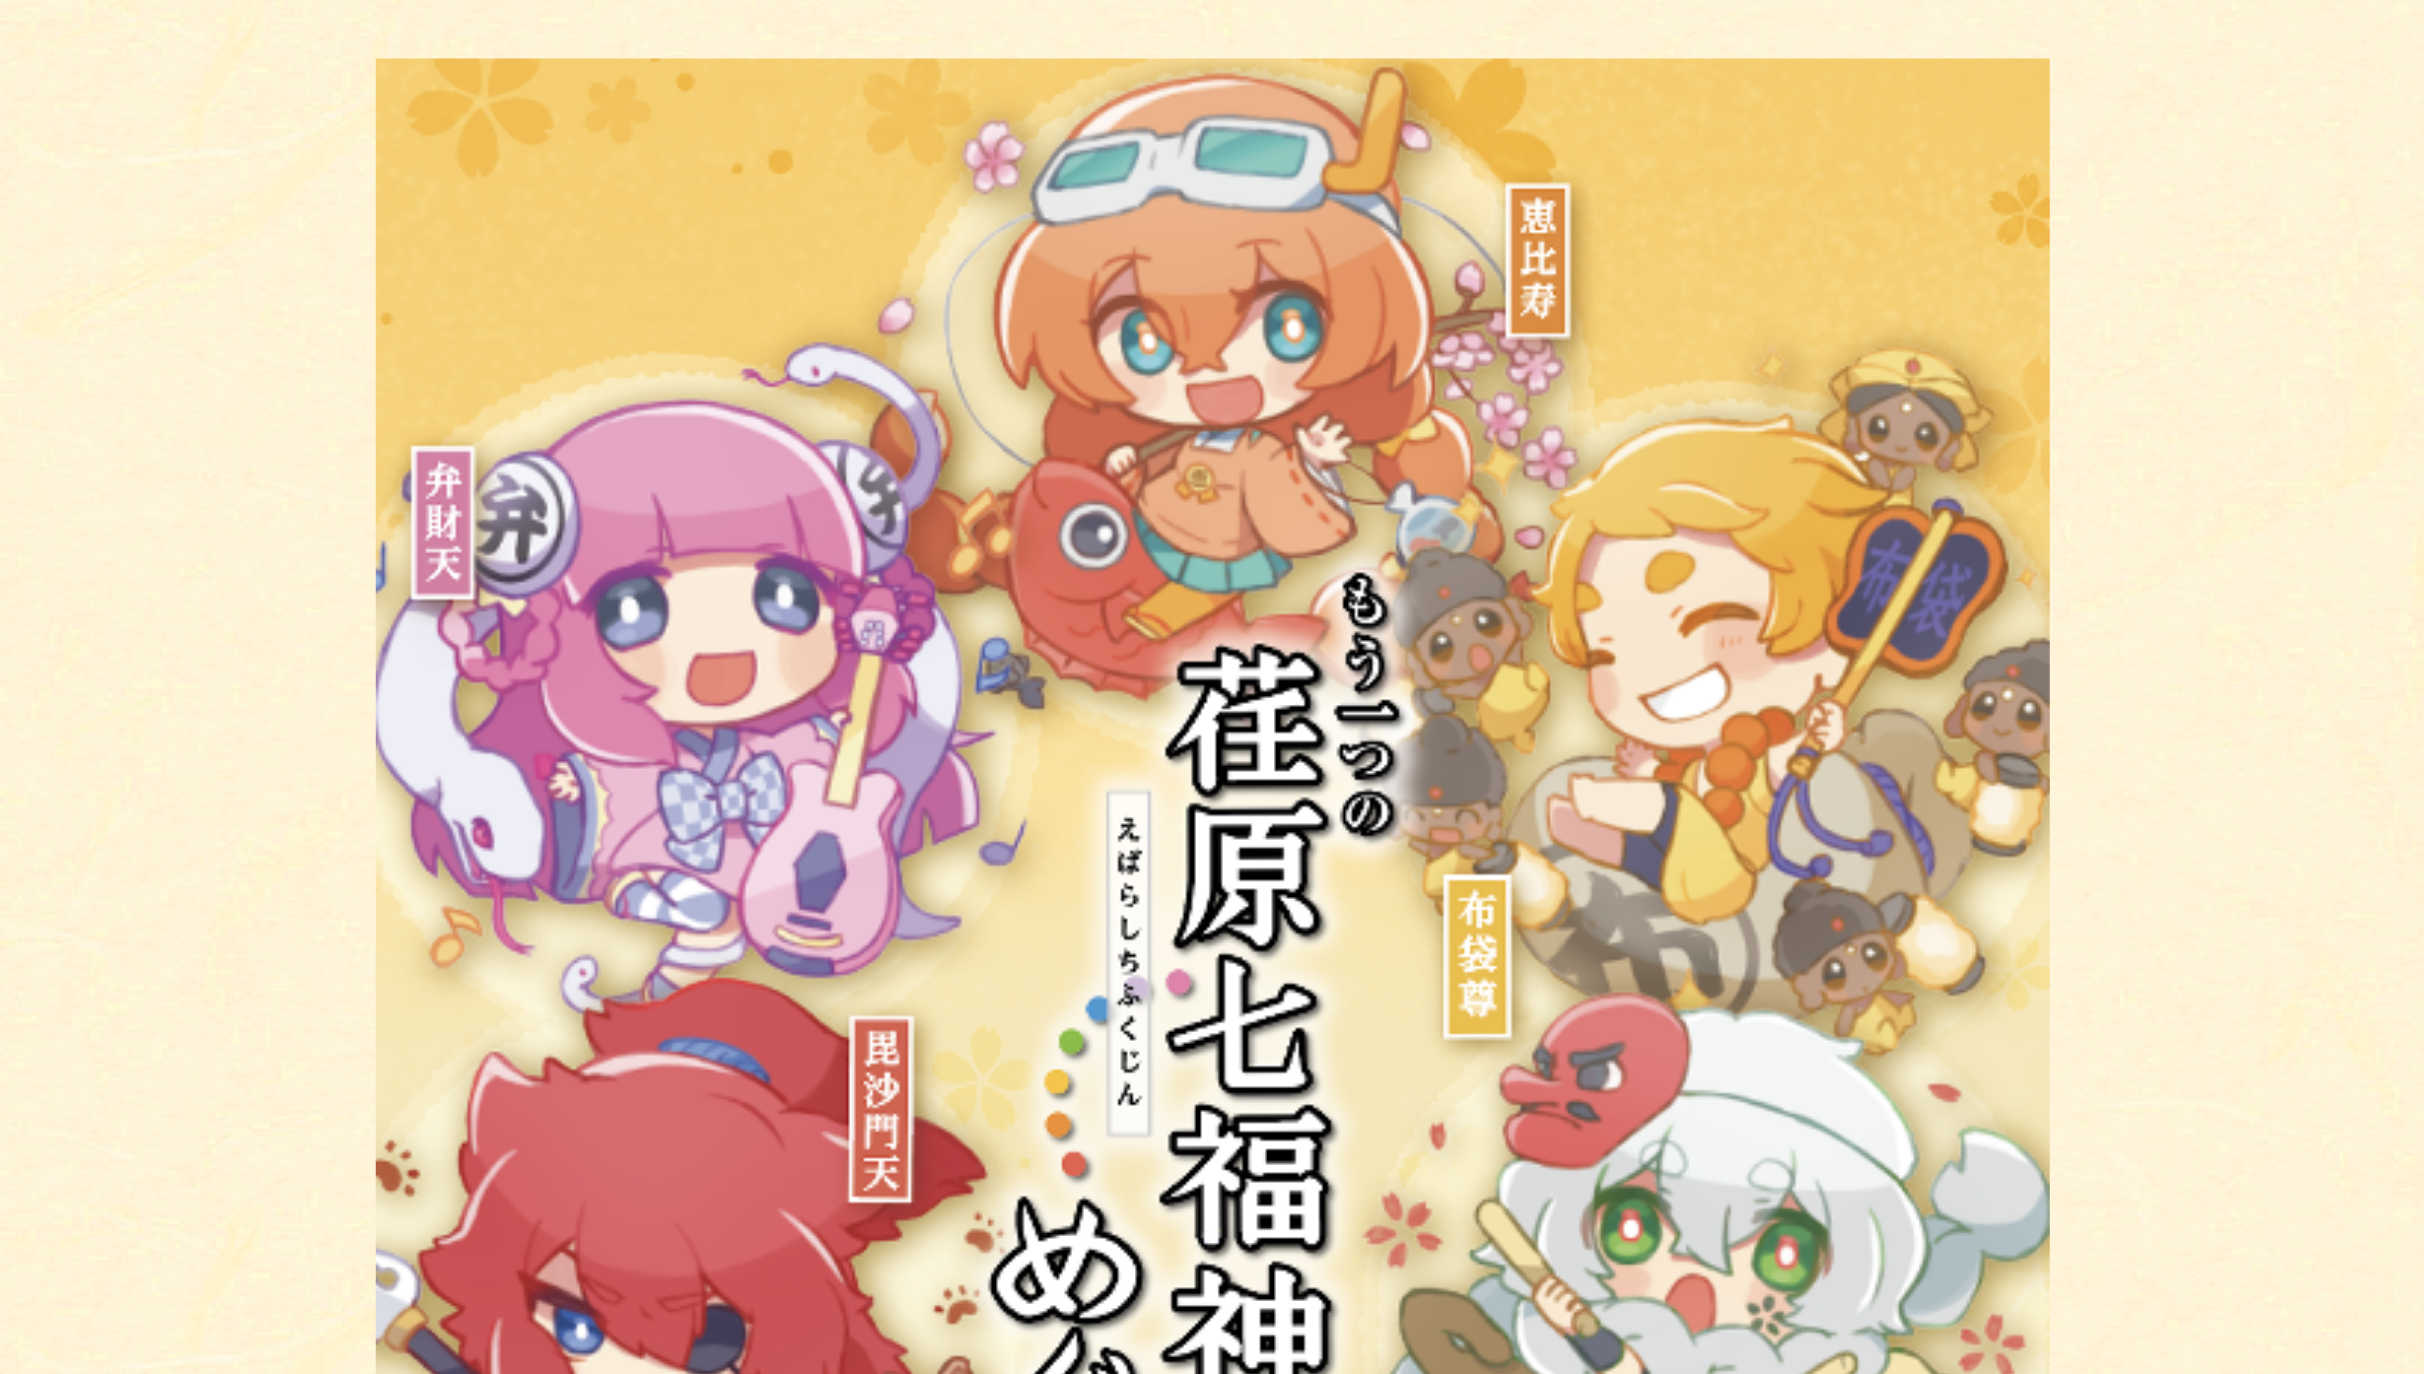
void draw(SkCanvas* canvas) {
    SkPaint paint;
    paint.setAntiAlias(true);
    auto paste = [&](const char* path, float x, float y, float w, float h) {
        auto image = SkImages::DeferredFromEncodedData(SkData::MakeFromFileName(path));
        canvas->drawImageRect(image, SkRect::MakeXYWH(x, y, w, h), SkSamplingOptions());
    };
    canvas->clear(SK_ColorWHITE);
    paste("pic1.png", 0, 0, 2424, 1374);
    paste("pic2.png", 375, 58, 1675, 1316);
}
